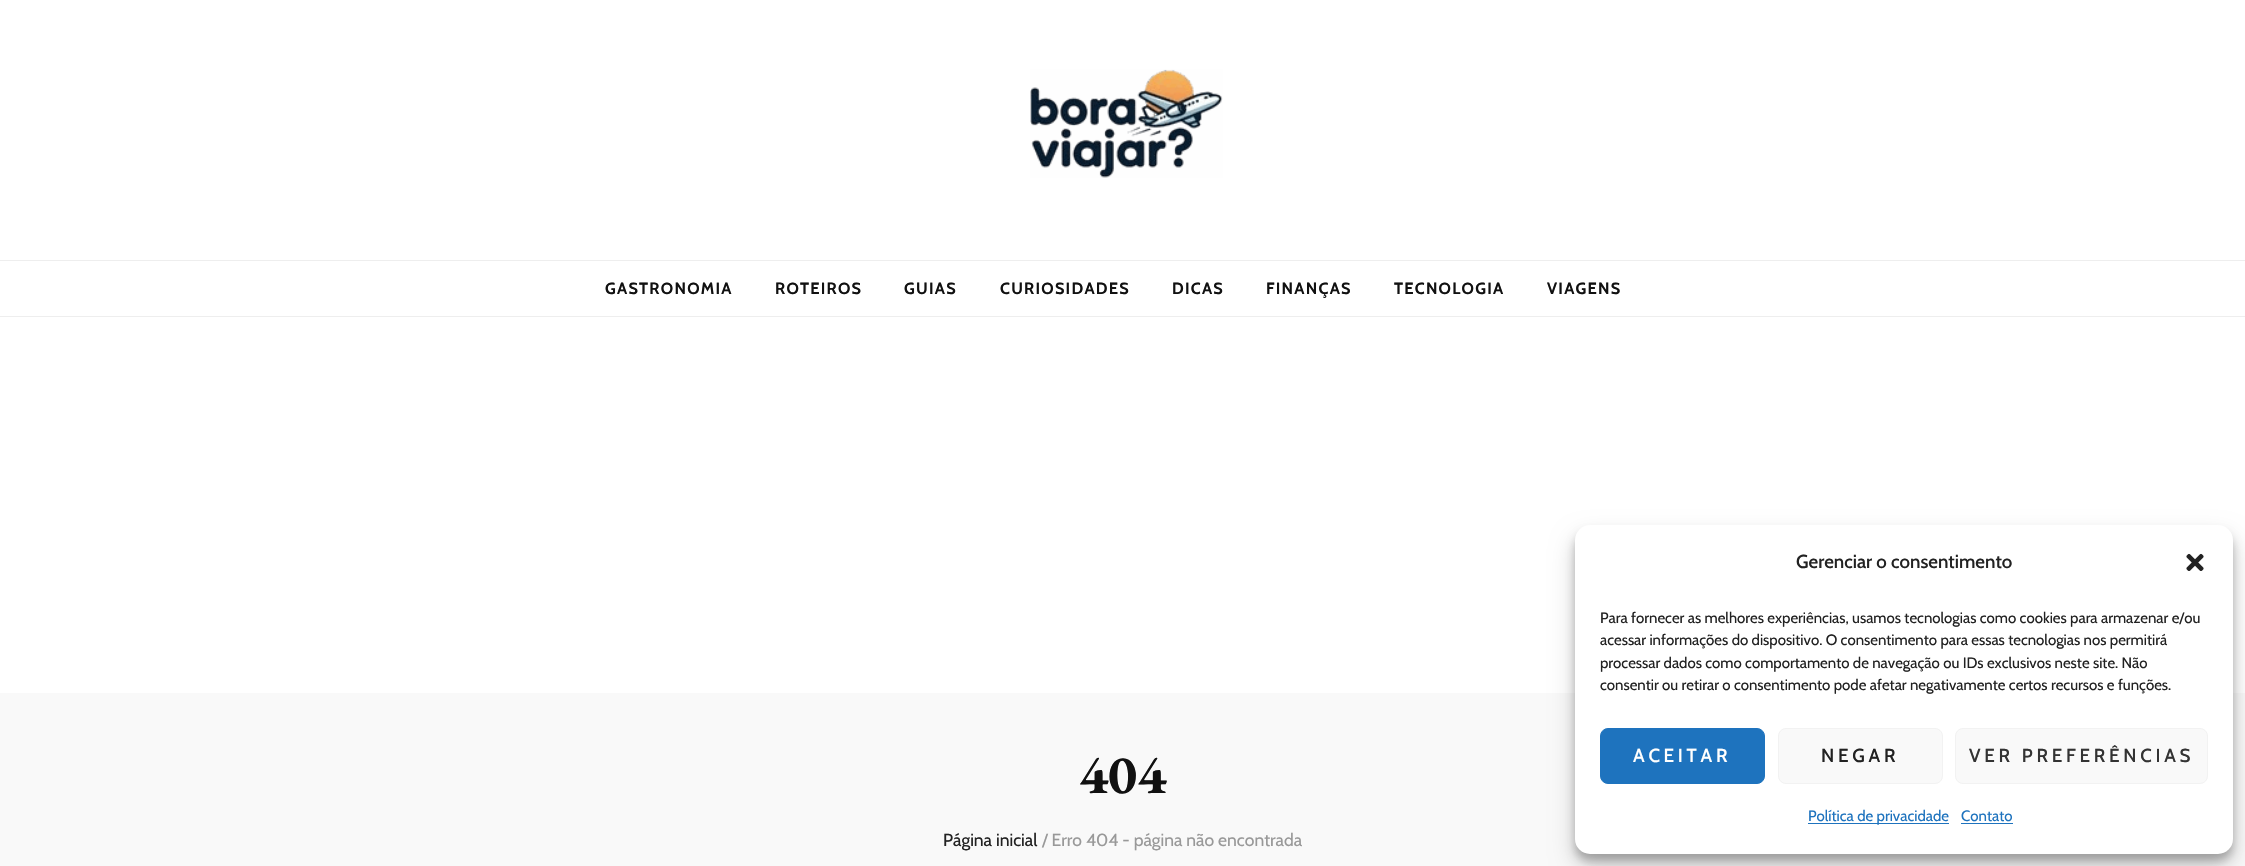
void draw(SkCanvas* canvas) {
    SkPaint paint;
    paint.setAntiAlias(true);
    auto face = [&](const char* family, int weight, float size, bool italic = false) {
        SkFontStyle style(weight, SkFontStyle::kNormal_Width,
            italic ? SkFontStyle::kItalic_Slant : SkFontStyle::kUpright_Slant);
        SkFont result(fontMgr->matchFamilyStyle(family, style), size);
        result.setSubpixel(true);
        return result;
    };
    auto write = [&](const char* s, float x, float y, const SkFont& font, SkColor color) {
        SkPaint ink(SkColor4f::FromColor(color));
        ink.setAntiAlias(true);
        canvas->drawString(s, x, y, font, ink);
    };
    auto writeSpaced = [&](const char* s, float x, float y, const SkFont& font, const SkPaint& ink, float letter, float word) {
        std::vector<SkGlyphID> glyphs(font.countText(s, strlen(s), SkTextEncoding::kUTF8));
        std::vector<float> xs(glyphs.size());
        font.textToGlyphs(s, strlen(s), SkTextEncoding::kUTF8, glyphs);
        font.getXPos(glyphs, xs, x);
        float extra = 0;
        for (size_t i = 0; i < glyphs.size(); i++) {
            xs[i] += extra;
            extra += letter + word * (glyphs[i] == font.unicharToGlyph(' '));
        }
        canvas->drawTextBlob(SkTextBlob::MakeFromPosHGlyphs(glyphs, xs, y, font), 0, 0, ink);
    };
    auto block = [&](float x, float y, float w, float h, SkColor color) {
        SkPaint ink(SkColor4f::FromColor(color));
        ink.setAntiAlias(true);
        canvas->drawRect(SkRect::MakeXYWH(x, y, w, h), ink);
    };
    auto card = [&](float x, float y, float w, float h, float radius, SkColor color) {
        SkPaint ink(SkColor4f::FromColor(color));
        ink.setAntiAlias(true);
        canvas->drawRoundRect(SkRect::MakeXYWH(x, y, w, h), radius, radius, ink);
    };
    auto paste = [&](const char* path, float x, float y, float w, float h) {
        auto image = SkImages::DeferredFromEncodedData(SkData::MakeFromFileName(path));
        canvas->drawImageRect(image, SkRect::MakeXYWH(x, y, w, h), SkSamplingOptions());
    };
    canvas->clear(SK_ColorWHITE);
    paste("pic1.png", 1030, 69, 193, 109);
    block(0, 260, 2245, 1, SkColorSetRGB(238, 238, 238));
    block(0, 316, 2245, 1, SkColorSetRGB(238, 238, 238));
    auto kFont1 = face("Cabin", 700, 16.25f);
    paint.setColor(SkColorSetRGB(17, 17, 17));
    writeSpaced("GASTRONOMIA", 605, 294, kFont1, paint, 1.25f, 0);
    writeSpaced("ROTEIROS", 775, 294, kFont1, paint, 1.25f, 0);
    writeSpaced("GUIAS", 904, 294, kFont1, paint, 1.25f, 0);
    writeSpaced("CURIOSIDADES", 1000, 294, kFont1, paint, 1.25f, 0);
    writeSpaced("DICAS", 1172, 294, kFont1, paint, 1.25f, 0);
    writeSpaced("FINANÇAS", 1266, 294, kFont1, paint, 1.25f, 0);
    writeSpaced("TECNOLOGIA", 1394, 294, kFont1, paint, 1.25f, 0);
    writeSpaced("VIAGENS", 1547, 294, kFont1, paint, 1.25f, 0);
    block(0, 693, 2245, 173, SkColorSetRGB(249, 249, 249));
    auto kFont2 = face("EB Garamond", 700, 55);
    write("404", 1079, 793, kFont2, SkColorSetRGB(17, 17, 17));
    auto kFont3 = face("Cabin", 400, 17.5f);
    write("Página inicial", 943, 846, kFont3, SkColorSetRGB(34, 34, 34));
    write("/ Erro 404 - página não encontrada", 1042, 846, kFont3, SkColorSetRGB(153, 153, 153));
    paint.setColor(SkColorSetARGB(59, 0, 0, 0));
    paint.setMaskFilter(SkMaskFilter::MakeBlur(kNormal_SkBlurStyle, 4));
    canvas->drawRoundRect(SkRect::MakeXYWH(1575, 533, 658, 328), 15, 15, paint);
    paint.setMaskFilter(nullptr);
    paint.setColor(SkColorSetARGB(48, 0, 0, 0));
    paint.setMaskFilter(SkMaskFilter::MakeBlur(kNormal_SkBlurStyle, 12.5f));
    canvas->drawRoundRect(SkRect::MakeXYWH(1575, 538, 658, 328), 15, 15, paint);
    paint.setMaskFilter(nullptr);
    card(1575, 525, 658, 329, 15, SK_ColorWHITE);
    auto kFont4 = face("Cabin", 500, 18.75f);
    write("Gerenciar o consentimento", 1796, 568, kFont4, SkColorSetRGB(34, 34, 34));
    paste("pic2.png", 2186, 553, 18, 18);
    auto kFont5 = face("Cabin", 400, 15);
    write("Para fornecer as melhores experiências, usamos tecnologias como cookies para armazenar e/ou", 1600, 623, kFont5, SkColorSetRGB(34, 34, 34));
    write("acessar informações do dispositivo. O consentimento para essas tecnologias nos permitirá", 1600, 645, kFont5, SkColorSetRGB(34, 34, 34));
    write("processar dados como comportamento de navegação ou IDs exclusivos neste site. Não", 1600, 668, kFont5, SkColorSetRGB(34, 34, 34));
    write("consentir ou retirar o consentimento pode afetar negativamente certos recursos e funções.", 1600, 690, kFont5, SkColorSetRGB(34, 34, 34));
    paint.setColor(SkColorSetRGB(30, 115, 190));
    canvas->drawRoundRect(SkRect::MakeXYWH(1600.5f, 728.5f, 164, 55), 7.5f, 7.5f, paint);
    paint.setStyle(SkPaint::kStroke_Style);
    paint.setStrokeWidth(1);
    canvas->drawRoundRect(SkRect::MakeXYWH(1600.5f, 728.5f, 164, 55), 7.5f, 7.5f, paint);
    paint.setStyle(SkPaint::kFill_Style);
    paint.setColor(SK_ColorWHITE);
    writeSpaced("ACEITAR", 1633, 762, kFont4, paint, 3.75f, 0);
    paint.setColor(SkColorSetRGB(249, 249, 249));
    canvas->drawRoundRect(SkRect::MakeXYWH(1778.5f, 728.5f, 164, 55), 7.5f, 7.5f, paint);
    paint.setStyle(SkPaint::kStroke_Style);
    paint.setColor(SkColorSetRGB(242, 242, 242));
    canvas->drawRoundRect(SkRect::MakeXYWH(1778.5f, 728.5f, 164, 55), 7.5f, 7.5f, paint);
    paint.setStyle(SkPaint::kFill_Style);
    paint.setColor(SkColorSetRGB(34, 34, 34));
    writeSpaced("NEGAR", 1821, 762, kFont4, paint, 3.75f, 0);
    paint.setColor(SkColorSetRGB(249, 249, 249));
    canvas->drawRoundRect(SkRect::MakeXYWH(1955.5f, 728.5f, 252, 55), 7.5f, 7.5f, paint);
    paint.setStyle(SkPaint::kStroke_Style);
    paint.setColor(SkColorSetRGB(242, 242, 242));
    canvas->drawRoundRect(SkRect::MakeXYWH(1955.5f, 728.5f, 252, 55), 7.5f, 7.5f, paint);
    paint.setStyle(SkPaint::kFill_Style);
    paint.setColor(SkColorSetRGB(51, 51, 51));
    writeSpaced("VER PREFERÊNCIAS", 1969, 762, kFont4, paint, 3.75f, 0);
    block(1808, 823, 141, 1, SkColorSetRGB(30, 115, 190));
    write("Política de privacidade", 1808, 821, kFont5, SkColorSetRGB(30, 115, 190));
    write("Contato", 1961, 821, kFont5, SkColorSetRGB(30, 115, 190));
    block(1961, 823, 52, 1, SkColorSetRGB(30, 115, 190));
}
